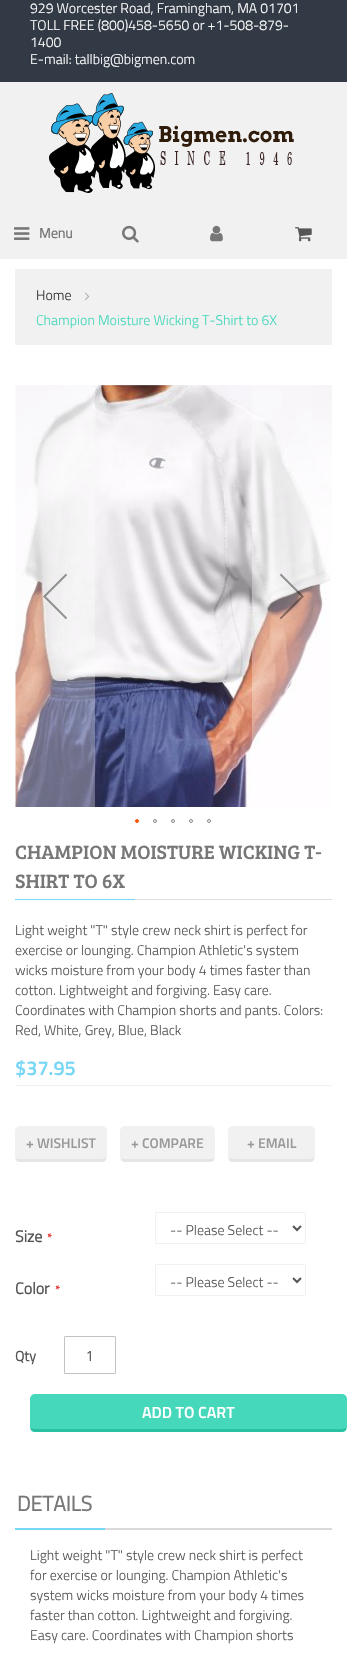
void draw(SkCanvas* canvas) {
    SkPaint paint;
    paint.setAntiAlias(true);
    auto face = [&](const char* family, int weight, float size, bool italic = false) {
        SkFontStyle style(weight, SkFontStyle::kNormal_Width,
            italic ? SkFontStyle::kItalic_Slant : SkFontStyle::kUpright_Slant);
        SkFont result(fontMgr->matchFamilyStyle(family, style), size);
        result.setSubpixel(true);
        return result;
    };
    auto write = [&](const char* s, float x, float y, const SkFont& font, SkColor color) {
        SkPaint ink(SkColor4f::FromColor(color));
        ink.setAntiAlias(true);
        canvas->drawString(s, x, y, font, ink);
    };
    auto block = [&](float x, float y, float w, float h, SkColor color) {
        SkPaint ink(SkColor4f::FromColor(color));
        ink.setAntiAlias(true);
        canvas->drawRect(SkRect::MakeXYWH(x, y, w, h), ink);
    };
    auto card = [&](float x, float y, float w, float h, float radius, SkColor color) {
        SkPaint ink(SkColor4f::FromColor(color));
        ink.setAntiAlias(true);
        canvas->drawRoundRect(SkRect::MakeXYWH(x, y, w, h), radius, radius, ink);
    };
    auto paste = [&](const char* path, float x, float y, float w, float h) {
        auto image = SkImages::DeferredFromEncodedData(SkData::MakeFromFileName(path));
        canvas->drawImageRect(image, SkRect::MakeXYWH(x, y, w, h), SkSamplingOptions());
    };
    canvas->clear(SK_ColorWHITE);
    block(0, 0, 347, 82, SkColorSetRGB(50, 58, 69));
    auto kFont1 = face("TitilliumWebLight", 300, 14);
    write("929 Worcester Road, Framingham, MA 01701", 30, 13, kFont1, SK_ColorWHITE);
    write("TOLL FREE (800)458-5650 or +1-508-879-", 30, 30, kFont1, SK_ColorWHITE);
    write("1400", 30, 47, kFont1, SK_ColorWHITE);
    write("E-mail: tallbig@bigmen.com", 30, 64, kFont1, SK_ColorWHITE);
    block(0, 82, 347, 177, SkColorSetRGB(241, 241, 241));
    paste("pic1.png", 49, 93, 245, 100);
    paste("pic2.png", 14, 227, 16, 13);
    auto kFont2 = face("TitilliumWebLight", 700, 14);
    write("Menu", 39, 238, kFont2, SkColorSetRGB(119, 119, 119));
    paste("pic3.png", 122, 225, 17, 18);
    paste("pic4.png", 210, 225, 13, 17);
    paste("pic5.png", 295, 227, 17, 15);
    block(15, 269, 317, 76, SkColorSetRGB(241, 241, 241));
    write("Home", 36, 300, kFont1, SkColorSetRGB(51, 51, 51));
    paste("pic6.png", 85, 292, 4, 9);
    write("Champion Moisture Wicking T-Shirt to 6X", 36, 325, kFont1, SkColorSetRGB(69, 216, 187));
    paste("pic7.png", 15, 385, 317, 422);
    block(15, 385, 80, 422, SkColorSetARGB(77, 255, 255, 255));
    paste("pic8.png", 43, 573, 25, 47);
    block(252, 385, 80, 362, SkColorSetARGB(77, 255, 255, 255));
    paste("pic9.png", 279, 573, 25, 47);
    paint.setColor(SkColorSetRGB(255, 85, 1));
    canvas->drawCircle(137, 821, 1.5f, paint);
    paint.setStyle(SkPaint::kStroke_Style);
    paint.setStrokeWidth(1);
    canvas->drawCircle(137, 821, 1.5f, paint);
    paint.setColor(SkColorSetRGB(133, 133, 133));
    canvas->drawCircle(155, 821, 1.5f, paint);
    canvas->drawCircle(173, 821, 1.5f, paint);
    canvas->drawCircle(191, 821, 1.5f, paint);
    canvas->drawCircle(209, 821, 1.5f, paint);
    block(135, 899, 197, 1, SkColorSetRGB(222, 222, 222));
    auto kFont3 = face("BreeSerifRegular", 400, 20);
    write("CHAMPION MOISTURE WICKING T-", 15, 859, kFont3, SkColorSetRGB(119, 119, 119));
    write("SHIRT TO 6X", 15, 888, kFont3, SkColorSetRGB(119, 119, 119));
    block(15, 899, 120, 1, SkColorSetRGB(118, 214, 246));
    write("Light weight \"T\" style crew neck shirt is perfect for", 15, 935, kFont1, SkColorSetRGB(85, 85, 85));
    write("exercise or lounging. Champion Athletic's system", 15, 955, kFont1, SkColorSetRGB(85, 85, 85));
    write("wicks moisture from your body 4 times faster than", 15, 975, kFont1, SkColorSetRGB(85, 85, 85));
    write("cotton. Lightweight and forgiving. Easy care.", 15, 995, kFont1, SkColorSetRGB(85, 85, 85));
    write("Coordinates with Champion shorts and pants. Colors:", 15, 1015, kFont1, SkColorSetRGB(85, 85, 85));
    write("Red, White, Grey, Blue, Black", 15, 1035, kFont1, SkColorSetRGB(85, 85, 85));
    canvas->save();
    canvas->clipRect(SkRect::MakeXYWH(15, 1060, 317, 20));
    auto kFont4 = face("Titillium Web", 600, 20);
    write("$37.95", 15, 1075, kFont4, SkColorSetRGB(118, 214, 246));
    canvas->restore();
    block(15, 1085, 317, 1, SkColorSetRGB(241, 241, 241));
    card(15, 1126, 92, 36, 5, SkColorSetRGB(241, 241, 241));
    paint.setStyle(SkPaint::kFill_Style);
    paint.setColor(SkColorSetRGB(229, 229, 229));
    canvas->drawPath(SkPathBuilder().moveTo(20, 1162).lineTo(102, 1162).cubicTo(104, 1162, 105, 1161, 106, 1160).lineTo(106, 1158).lineTo(103, 1159).lineTo(19, 1159).lineTo(16, 1158).lineTo(16, 1160).cubicTo(17, 1161, 18, 1162, 20, 1162).close().detach(), paint);
    auto kFont5 = face("Titillium Web", 600, 14);
    write("+ WISHLIST", 26, 1148, kFont5, SkColorSetRGB(153, 153, 153));
    card(120, 1126, 95, 36, 5, SkColorSetRGB(241, 241, 241));
    canvas->drawPath(SkPathBuilder().moveTo(125, 1162).lineTo(210, 1162).cubicTo(212, 1162, 213, 1161, 214, 1160).lineTo(214, 1158).lineTo(211, 1159).lineTo(124, 1159).lineTo(121, 1158).lineTo(121, 1160).cubicTo(122, 1161, 123, 1162, 125, 1162).close().detach(), paint);
    write("+ COMPARE", 131, 1148, kFont5, SkColorSetRGB(153, 153, 153));
    card(228, 1126, 87, 36, 5, SkColorSetRGB(241, 241, 241));
    canvas->drawPath(SkPathBuilder().moveTo(233, 1162).lineTo(310, 1162).cubicTo(312, 1162, 313, 1161, 314, 1160).lineTo(314, 1158).cubicTo(313, 1158, 311, 1159, 310, 1159).lineTo(233, 1159).cubicTo(232, 1159, 230, 1158, 229, 1158).lineTo(229, 1160).cubicTo(230, 1161, 231, 1162, 233, 1162).close().detach(), paint);
    write("+ EMAIL", 247, 1148, kFont5, SkColorSetRGB(153, 153, 153));
    auto kFont6 = face("TitilliumWebLight", 700, 16);
    write("Size", 15, 1242, kFont6, SkColorSetRGB(85, 85, 85));
    auto kFont7 = face("TitilliumWebLight", 700, 12);
    write("*", 47, 1242, kFont7, SkColorSetRGB(224, 43, 39));
    paint.setStyle(SkPaint::kStroke_Style);
    paint.setColor(SkColorSetRGB(241, 241, 241));
    canvas->drawRoundRect(SkRect::MakeXYWH(155.5f, 1212.5f, 150, 31), 0.5f, 0.5f, paint);
    paint.setStrokeWidth(2);
    paint.setColor(SkColorSetRGB(85, 85, 85));
    canvas->drawPath(SkPathBuilder().moveTo(293, 1226).lineTo(297, 1230).lineTo(301, 1226).detach(), paint);
    write("-- Please Select --", 170, 1235, kFont1, SkColorSetRGB(85, 85, 85));
    write("Color", 15, 1294, kFont6, SkColorSetRGB(85, 85, 85));
    write("*", 55, 1294, kFont7, SkColorSetRGB(224, 43, 39));
    paint.setStrokeWidth(1);
    paint.setColor(SkColorSetRGB(241, 241, 241));
    canvas->drawRoundRect(SkRect::MakeXYWH(155.5f, 1264.5f, 150, 31), 0.5f, 0.5f, paint);
    paint.setStrokeWidth(2);
    paint.setColor(SkColorSetRGB(85, 85, 85));
    canvas->drawPath(SkPathBuilder().moveTo(293, 1278).lineTo(297, 1282).lineTo(301, 1278).detach(), paint);
    write("-- Please Select --", 170, 1287, kFont1, SkColorSetRGB(85, 85, 85));
    write("Qty", 15, 1361, kFont2, SkColorSetRGB(85, 85, 85));
    paint.setStrokeWidth(1);
    paint.setColor(SkColorSetRGB(194, 194, 194));
    canvas->drawRoundRect(SkRect::MakeXYWH(64.5f, 1336.5f, 51, 37), 0.5f, 0.5f, paint);
    auto kFont8 = face("Open Sans", 400, 14);
    write("1", 86, 1361, kFont8, SkColorSetRGB(85, 85, 85));
    card(30, 1394, 317, 38, 5, SkColorSetRGB(69, 216, 187));
    paint.setStyle(SkPaint::kFill_Style);
    paint.setColor(SkColorSetRGB(41, 193, 163));
    canvas->drawPath(SkPathBuilder().moveTo(35, 1432).lineTo(342, 1432).cubicTo(344, 1432, 345, 1431, 346, 1430).lineTo(346, 1428).cubicTo(345, 1428, 343, 1429, 342, 1429).lineTo(35, 1429).cubicTo(34, 1429, 32, 1428, 31, 1428).lineTo(31, 1430).cubicTo(32, 1431, 33, 1432, 35, 1432).close().detach(), paint);
    auto kFont9 = face("Titillium Web", 600, 16);
    write("ADD TO CART", 142, 1418, kFont9, SK_ColorWHITE);
    block(105, 1528, 227, 2, SkColorSetRGB(218, 218, 218));
    auto kFont10 = face("TitilliumWebLight", 700, 21);
    write("DETAILS", 17, 1511, kFont10, SkColorSetRGB(119, 119, 119));
    block(15, 1528, 90, 2, SkColorSetRGB(118, 214, 246));
    write("Light weight \"T\" style crew neck shirt is perfect", 30, 1560, kFont1, SkColorSetRGB(85, 85, 85));
    write("for exercise or lounging. Champion Athletic's", 30, 1580, kFont1, SkColorSetRGB(85, 85, 85));
    write("system wicks moisture from your body 4 times", 30, 1600, kFont1, SkColorSetRGB(85, 85, 85));
    write("faster than cotton. Lightweight and forgiving.", 30, 1620, kFont1, SkColorSetRGB(85, 85, 85));
    write("Easy care. Coordinates with Champion shorts", 30, 1640, kFont1, SkColorSetRGB(85, 85, 85));
}
